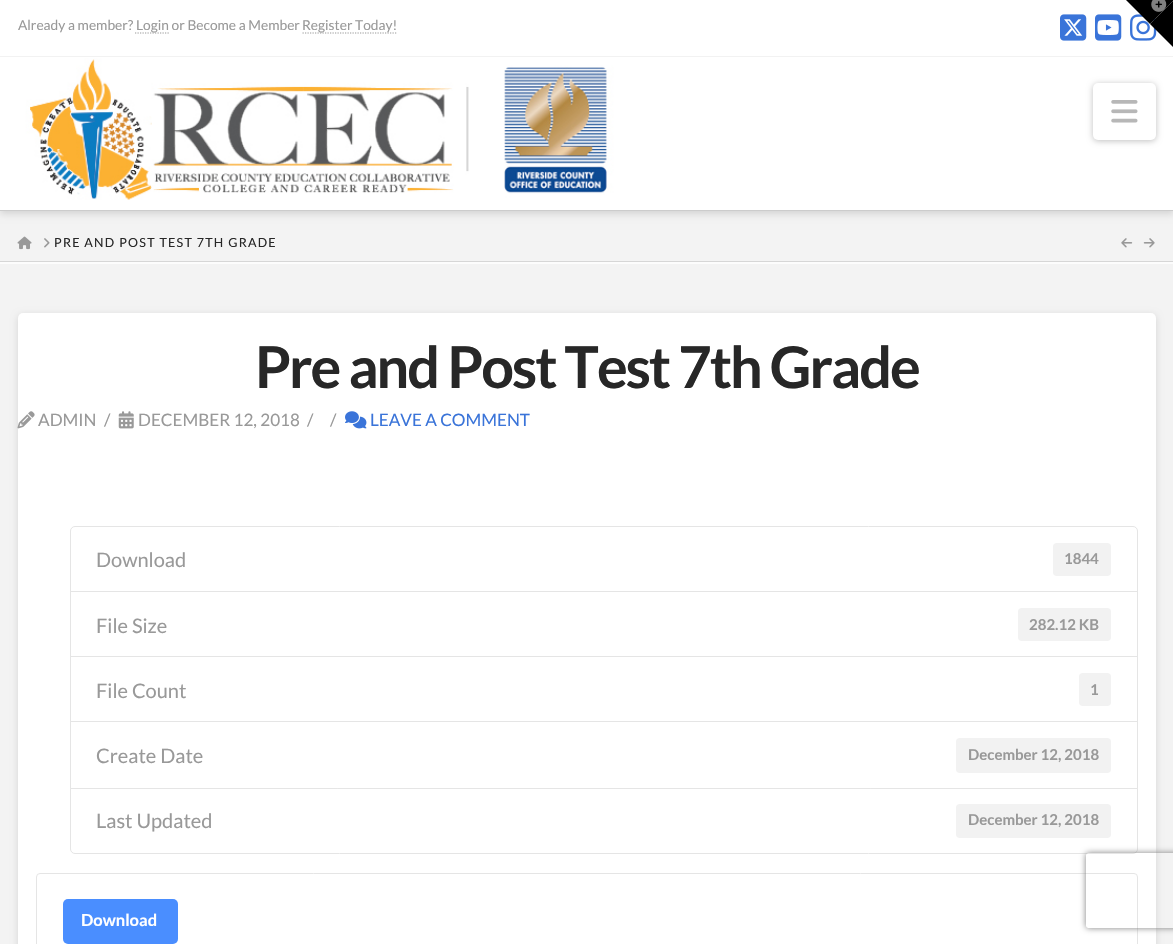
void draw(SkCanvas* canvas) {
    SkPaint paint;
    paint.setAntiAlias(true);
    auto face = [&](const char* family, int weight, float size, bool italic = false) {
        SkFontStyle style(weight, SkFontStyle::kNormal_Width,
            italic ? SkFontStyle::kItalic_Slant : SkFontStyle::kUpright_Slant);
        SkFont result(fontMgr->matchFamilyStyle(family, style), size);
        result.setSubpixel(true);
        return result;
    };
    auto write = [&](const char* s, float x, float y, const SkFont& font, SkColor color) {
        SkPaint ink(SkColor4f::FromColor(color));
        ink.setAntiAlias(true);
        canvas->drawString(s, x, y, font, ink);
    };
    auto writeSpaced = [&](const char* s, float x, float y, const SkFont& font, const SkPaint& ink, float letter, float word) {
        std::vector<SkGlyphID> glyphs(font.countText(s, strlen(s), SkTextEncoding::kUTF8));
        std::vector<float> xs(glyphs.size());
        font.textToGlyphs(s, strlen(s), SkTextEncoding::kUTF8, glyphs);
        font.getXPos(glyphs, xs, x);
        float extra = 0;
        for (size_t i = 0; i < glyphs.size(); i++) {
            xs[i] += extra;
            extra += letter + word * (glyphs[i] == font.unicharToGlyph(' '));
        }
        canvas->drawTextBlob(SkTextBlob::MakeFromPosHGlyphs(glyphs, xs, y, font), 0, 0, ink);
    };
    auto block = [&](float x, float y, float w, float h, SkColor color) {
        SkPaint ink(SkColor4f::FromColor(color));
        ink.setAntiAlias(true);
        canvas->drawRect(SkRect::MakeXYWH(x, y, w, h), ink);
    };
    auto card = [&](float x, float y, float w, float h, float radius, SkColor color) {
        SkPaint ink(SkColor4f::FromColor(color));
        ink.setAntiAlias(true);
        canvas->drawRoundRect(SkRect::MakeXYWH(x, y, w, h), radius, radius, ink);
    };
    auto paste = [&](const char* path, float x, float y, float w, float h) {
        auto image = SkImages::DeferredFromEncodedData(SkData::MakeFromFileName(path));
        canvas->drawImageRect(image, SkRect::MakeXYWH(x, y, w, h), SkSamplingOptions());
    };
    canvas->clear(SkColorSetRGB(243, 243, 243));
    paint.setColor(SkColorSetARGB(33, 0, 0, 0));
    paint.setMaskFilter(SkMaskFilter::MakeBlur(kNormal_SkBlurStyle, 3.5f));
    canvas->drawRect(SkRect::MakeXYWH(0, 60, 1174, 154), paint);
    paint.setMaskFilter(nullptr);
    block(0, 0, 1173, 210, SK_ColorWHITE);
    block(0, 210, 1173, 1, SkColorSetRGB(204, 204, 204));
    paste("pic1.png", 18, 58, 624, 142);
    paint.setColor(SkColorSetARGB(64, 0, 0, 0));
    paint.setMaskFilter(SkMaskFilter::MakeBlur(kNormal_SkBlurStyle, 3));
    canvas->drawRoundRect(SkRect::MakeXYWH(1093, 84, 63, 57), 5, 5, paint);
    paint.setMaskFilter(nullptr);
    card(1093, 83, 63, 57, 5, SK_ColorWHITE);
    paste("pic2.png", 1111, 100, 27, 23);
    block(0, 56, 1173, 1, SkColorSetRGB(242, 242, 242));
    auto kFont1 = face("Lato", 400, 13.75f);
    write("Already a member?", 18, 30, kFont1, SkColorSetRGB(153, 153, 153));
    paint.setStyle(SkPaint::kStroke_Style);
    paint.setStrokeWidth(1.2f);
    paint.setColor(SkColorSetRGB(153, 153, 153));
    paint.setPathEffect(SkDashPathEffect::Make({{1.25f, 1.25f}}, 0));
    canvas->drawPath(SkPathBuilder().moveTo(135, 33).lineTo(169, 33).detach(), paint);
    paint.setPathEffect(nullptr);
    write("Login or Become a Member", 136, 30, kFont1, SkColorSetRGB(153, 153, 153));
    paint.setPathEffect(SkDashPathEffect::Make({{1.25f, 1.25f}}, 0));
    canvas->drawPath(SkPathBuilder().moveTo(302.5f, 33).lineTo(397.5f, 33).detach(), paint);
    paint.setPathEffect(nullptr);
    write("Register Today!", 302, 30, kFont1, SkColorSetRGB(153, 153, 153));
    paste("pic3.png", 1060, 14, 27, 27);
    paste("pic4.png", 1095, 14, 27, 27);
    paste("pic5.png", 1130, 14, 27, 27);
    paint.setStyle(SkPaint::kFill_Style);
    paint.setColor(SkColorSetRGB(252, 252, 252));
    canvas->drawPath(SkPathBuilder().moveTo(0, 262).lineTo(0, 264).lineTo(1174, 264).lineTo(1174, 213).lineTo(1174, 262).close().detach(), paint);
    block(0, 261, 1173, 1, SkColorSetRGB(214, 214, 214));
    paste("pic6.png", 17, 236, 15, 14);
    paste("pic7.png", 44, 238, 6, 10);
    auto kFont2 = face("Lato", 400, 12.5f);
    paint.setColor(SkColorSetRGB(39, 39, 39));
    writeSpaced("PRE AND POST TEST 7TH GRADE", 54, 247, kFont2, paint, 1.25f, 0);
    paste("pic8.png", 1121, 238, 12, 10);
    paste("pic9.png", 1143, 238, 12, 10);
    paint.setColor(SkColorSetARGB(33, 0, 0, 0));
    paint.setMaskFilter(SkMaskFilter::MakeBlur(kNormal_SkBlurStyle, 3.5f));
    canvas->drawRoundRect(SkRect::MakeXYWH(18, 315, 1138, 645), 5, 5, paint);
    paint.setMaskFilter(nullptr);
    card(18, 313, 1138, 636, 5, SK_ColorWHITE);
    auto kFont3 = face("Lato", 700, 57.6f);
    paint.setColor(SkColorSetRGB(39, 39, 39));
    writeSpaced("Pre and Post Test 7th Grade", 255, 388, kFont3, paint, -2, 0);
    paste("pic10.png", 17, 411, 18, 18);
    auto kFont4 = face("Lato", 400, 17.1f);
    write("ADMIN", 38, 426, kFont4, SkColorSetRGB(153, 153, 153));
    write("/", 104, 426, kFont4, SkColorSetRGB(153, 153, 153));
    paste("pic11.png", 118, 411, 16, 18);
    write("DECEMBER 12, 2018", 138, 426, kFont4, SkColorSetRGB(153, 153, 153));
    write("/", 307, 426, kFont4, SkColorSetRGB(153, 153, 153));
    write("/", 330, 426, kFont4, SkColorSetRGB(153, 153, 153));
    paste("pic12.png", 345, 411, 22, 18);
    write("LEAVE A COMMENT", 370, 426, kFont4, SkColorSetRGB(58, 116, 217));
    paint.setStyle(SkPaint::kStroke_Style);
    paint.setStrokeWidth(1);
    paint.setColor(SkColorSetRGB(229, 229, 229));
    canvas->drawPath(SkPathBuilder().moveTo(75, 526.5f).lineTo(1133, 526.5f).cubicTo(1135.5f, 526.5f, 1137.5f, 528.5f, 1137.5f, 531).lineTo(1137.5f, 592.5f).lineTo(70.5f, 592.5f).lineTo(70.5f, 531).cubicTo(70.5f, 528.5f, 72.5f, 526.5f, 75, 526.5f).close().detach(), paint);
    auto kFont5 = face("Lato", 400, 20);
    write("Download", 96, 567, kFont5, SkColorSetRGB(153, 153, 153));
    card(1053, 543, 58, 33, 4, SkColorSetRGB(242, 242, 242));
    auto kFont6 = face("Lato", 700, 15);
    write("1844", 1064, 564, kFont6, SkColorSetRGB(153, 153, 153));
    block(71, 592, 1066, 1, SK_ColorWHITE);
    canvas->drawRect(SkRect::MakeXYWH(70.5f, 591.5f, 1067, 66), paint);
    write("File Size", 96, 633, kFont5, SkColorSetRGB(153, 153, 153));
    card(1018, 608, 93, 33, 4, SkColorSetRGB(242, 242, 242));
    write("282.12 KB", 1029, 630, kFont6, SkColorSetRGB(153, 153, 153));
    block(71, 657, 1066, 1, SK_ColorWHITE);
    canvas->drawRect(SkRect::MakeXYWH(70.5f, 656.5f, 1067, 66), paint);
    write("File Count", 96, 698, kFont5, SkColorSetRGB(153, 153, 153));
    card(1079, 673, 32, 33, 4, SkColorSetRGB(242, 242, 242));
    write("1", 1090, 695, kFont6, SkColorSetRGB(153, 153, 153));
    block(71, 722, 1066, 1, SK_ColorWHITE);
    canvas->drawRect(SkRect::MakeXYWH(70.5f, 721.5f, 1067, 67), paint);
    write("Create Date", 96, 763, kFont5, SkColorSetRGB(153, 153, 153));
    card(956, 738, 155, 35, 4, SkColorSetRGB(242, 242, 242));
    write("December 12, 2018", 968, 760, kFont6, SkColorSetRGB(153, 153, 153));
    paint.setStyle(SkPaint::kFill_Style);
    paint.setColor(SK_ColorWHITE);
    canvas->drawPath(SkPathBuilder().moveTo(70.5f, 788.5f).lineTo(1137.5f, 788.5f).lineTo(1137.5f, 849).cubicTo(1137.5f, 851.5f, 1135.5f, 853.5f, 1133, 853.5f).lineTo(75, 853.5f).cubicTo(72.5f, 853.5f, 70.5f, 851.5f, 70.5f, 849).close().detach(), paint);
    paint.setStyle(SkPaint::kStroke_Style);
    paint.setColor(SkColorSetRGB(229, 229, 229));
    canvas->drawPath(SkPathBuilder().moveTo(70.5f, 788.5f).lineTo(1137.5f, 788.5f).lineTo(1137.5f, 849).cubicTo(1137.5f, 851.5f, 1135.5f, 853.5f, 1133, 853.5f).lineTo(75, 853.5f).cubicTo(72.5f, 853.5f, 70.5f, 851.5f, 70.5f, 849).close().detach(), paint);
    write("Last Updated", 96, 828, kFont5, SkColorSetRGB(153, 153, 153));
    card(956, 804, 155, 34, 4, SkColorSetRGB(242, 242, 242));
    write("December 12, 2018", 968, 825, kFont6, SkColorSetRGB(153, 153, 153));
    canvas->drawRoundRect(SkRect::MakeXYWH(36.5f, 873.5f, 1101, 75), 3.5f, 3.5f, paint);
    card(63, 899, 115, 45, 5, SkColorSetRGB(74, 142, 255));
    auto kFont7 = face("Lato", 700, 16.5f);
    write("Download", 81, 926, kFont7, SK_ColorWHITE);
    paint.setStyle(SkPaint::kFill_Style);
    paint.setColor(SK_ColorBLACK);
    canvas->drawPath(SkPathBuilder().moveTo(1126, 0).lineTo(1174, 0).lineTo(1150, 24).close().detach(), paint);
    canvas->drawPath(SkPathBuilder().moveTo(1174, 0).lineTo(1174, 48).lineTo(1150, 24).close().detach(), paint);
    paste("pic13.png", 1151, 0, 16, 12);
    canvas->save();
    canvas->clipPath(SkPathBuilder(SkPathFillType::kEvenOdd).moveTo(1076, 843).lineTo(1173, 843).lineTo(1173, 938).lineTo(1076, 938).close().moveTo(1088.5f, 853).lineTo(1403.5f, 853).cubicTo(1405, 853, 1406, 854, 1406, 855.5f).lineTo(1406, 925.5f).cubicTo(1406, 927, 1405, 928, 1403.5f, 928).lineTo(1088.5f, 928).cubicTo(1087, 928, 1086, 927, 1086, 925.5f).lineTo(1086, 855.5f).cubicTo(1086, 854, 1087, 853, 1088.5f, 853).close().detach(), true);
    paint.setColor(SkColorSetRGB(128, 128, 128));
    paint.setMaskFilter(SkMaskFilter::MakeBlur(kNormal_SkBlurStyle, 3));
    canvas->drawRoundRect(SkRect::MakeXYWH(1086, 853, 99, 75), 2.5f, 2.5f, paint);
    paint.setMaskFilter(nullptr);
    canvas->restore();
}
